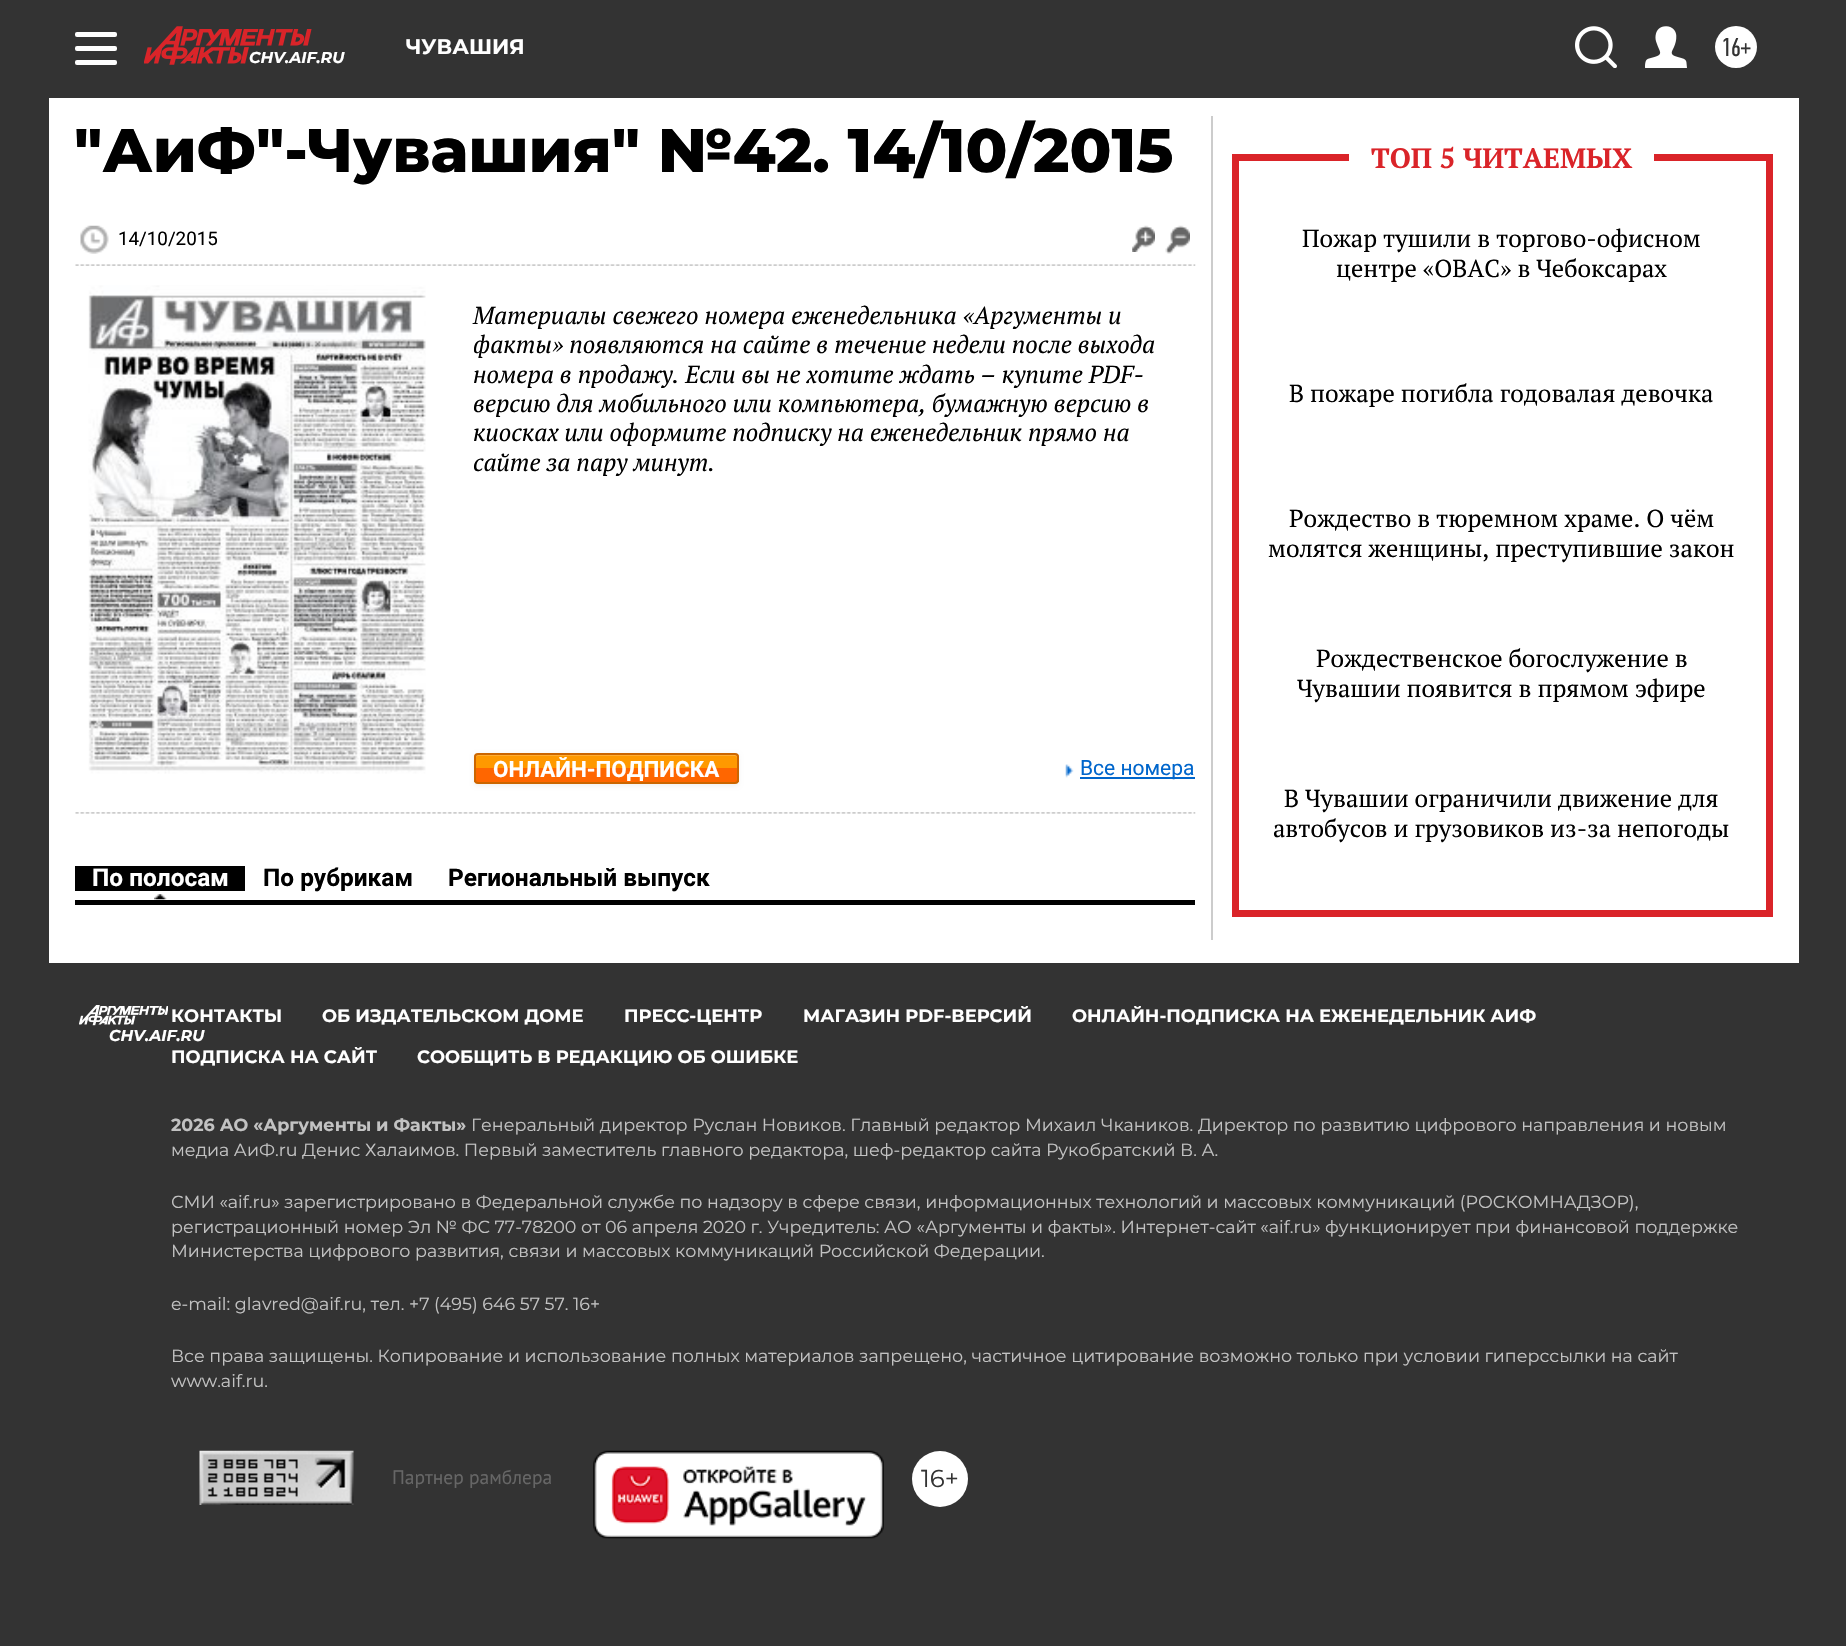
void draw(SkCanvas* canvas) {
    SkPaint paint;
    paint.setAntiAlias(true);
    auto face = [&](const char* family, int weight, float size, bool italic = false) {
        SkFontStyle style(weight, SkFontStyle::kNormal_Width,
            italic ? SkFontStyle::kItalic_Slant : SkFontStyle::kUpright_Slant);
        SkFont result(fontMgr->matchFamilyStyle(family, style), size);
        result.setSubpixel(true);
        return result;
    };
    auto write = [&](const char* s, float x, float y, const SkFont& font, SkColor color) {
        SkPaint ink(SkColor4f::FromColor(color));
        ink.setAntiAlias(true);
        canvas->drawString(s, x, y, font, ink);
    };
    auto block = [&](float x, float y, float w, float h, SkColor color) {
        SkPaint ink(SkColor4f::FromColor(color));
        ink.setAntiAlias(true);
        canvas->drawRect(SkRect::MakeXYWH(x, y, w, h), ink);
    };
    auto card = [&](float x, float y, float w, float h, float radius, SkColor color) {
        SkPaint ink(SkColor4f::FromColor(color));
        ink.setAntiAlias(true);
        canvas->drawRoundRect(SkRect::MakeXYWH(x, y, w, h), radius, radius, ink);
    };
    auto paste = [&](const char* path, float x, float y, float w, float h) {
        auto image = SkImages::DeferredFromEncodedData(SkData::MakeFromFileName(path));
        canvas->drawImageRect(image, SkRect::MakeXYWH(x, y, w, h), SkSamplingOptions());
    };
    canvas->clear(SkColorSetRGB(51, 51, 51));
    card(75, 32, 42, 5, 2, SK_ColorWHITE);
    card(75, 46, 42, 5, 2, SK_ColorWHITE);
    card(75, 60, 42, 5, 2, SK_ColorWHITE);
    auto kFont1 = face("Montserrat", 700, 21);
    write("ЧУВАШИЯ", 406, 54, kFont1, SK_ColorWHITE);
    paste("pic1.png", 1575, 26, 42, 42);
    paste("pic2.png", 1645, 26, 42, 42);
    paint.setColor(SK_ColorWHITE);
    canvas->drawCircle(1736, 47, 21, paint);
    auto kFont2 = face("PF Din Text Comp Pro", 400, 26);
    write("16+", 1721, 56, kFont2, SkColorSetRGB(51, 51, 51));
    paste("pic3.png", 144, 26, 168, 39);
    auto kFont3 = face("Montserrat", 700, 15.75f, true);
    write("CHV.AIF.RU", 249, 63, kFont3, SK_ColorWHITE);
    block(49, 98, 1750, 865, SK_ColorWHITE);
    block(1211, 116, 2, 824, SkColorSetRGB(204, 204, 204));
    paste("pic4.png", 75, 812, 1121, 2);
    auto kFont4 = face("Montserrat", 800, 61.25f);
    write("\"АиФ\"-Чувашия\" №42. 14/10/2015", 74, 172, kFont4, SK_ColorBLACK);
    paste("pic5.png", 75, 264, 1121, 2);
    paste("pic6.png", 80, 225, 29, 29);
    auto kFont5 = face("Roboto", 400, 18.75f);
    write("14/10/2015", 118, 245, kFont5, SK_ColorBLACK);
    paste("pic7.png", 1132, 225, 23, 27);
    paste("pic8.png", 1165, 225, 25, 29);
    paste("pic9.png", 88, 285, 338, 489);
    auto kFont6 = face("PT Serif", 400, 24.5f, true);
    write("Материалы свежего номера еженедельника «Аргументы и", 473, 324, kFont6, SK_ColorBLACK);
    write("факты» появляются на сайте в течение недели после выхода", 473, 353, kFont6, SK_ColorBLACK);
    write("номера в продажу. Если вы не хотите ждать – купите PDF-", 473, 383, kFont6, SK_ColorBLACK);
    write("версию для мобильного или компьютера, бумажную версию в", 473, 412, kFont6, SK_ColorBLACK);
    write("киосках или оформите подписку на еженедельник прямо на", 473, 441, kFont6, SK_ColorBLACK);
    write("сайте за пару минут.", 473, 471, kFont6, SK_ColorBLACK);
    paint.setColor(SkColorSetARGB(13, 0, 0, 0));
    paint.setMaskFilter(SkMaskFilter::MakeBlur(kNormal_SkBlurStyle, 2));
    canvas->drawRoundRect(SkRect::MakeXYWH(474, 754, 265, 32), 4, 4, paint);
    paint.setMaskFilter(nullptr);
    canvas->save();
    canvas->clipPath(SkPathBuilder().moveTo(478, 753).lineTo(735, 753).cubicTo(737, 753, 739, 755, 739, 757).lineTo(739, 780).cubicTo(739, 782, 737, 784, 735, 784).lineTo(478, 784).cubicTo(476, 784, 474, 782, 474, 780).lineTo(474, 757).cubicTo(474, 755, 476, 753, 478, 753).close().detach(), true);
    block(474, 754, 265, 14, SkColorSetRGB(255, 153, 0));
    canvas->restore();
    block(474, 768, 265, 14, SkColorSetRGB(255, 102, 0));
    paint.setColor(SkColorSetRGB(255, 173, 51));
    canvas->drawPath(SkPathBuilder().moveTo(478, 756).lineTo(735, 756).cubicTo(736, 756, 737, 757, 737, 758).lineTo(737, 756).cubicTo(737, 755, 736, 754, 735, 754).lineTo(478, 754).cubicTo(477, 754, 476, 755, 476, 756).lineTo(476, 758).cubicTo(476, 757, 477, 756, 478, 756).close().detach(), paint);
    paint.setStyle(SkPaint::kStroke_Style);
    paint.setStrokeWidth(2);
    paint.setColor(SkColorSetRGB(204, 102, 0));
    canvas->drawRoundRect(SkRect::MakeXYWH(475, 754, 263, 29), 3, 3, paint);
    auto kFont7 = face("Roboto", 700, 22.4f);
    write("ОНЛАЙН-ПОДПИСКА", 493, 777, kFont7, SK_ColorWHITE);
    paste("pic10.png", 1065, 764, 9, 14);
    block(1080, 777, 115, 2, SkColorSetRGB(0, 102, 204));
    auto kFont8 = face("Roboto", 400, 21);
    write("Все номера", 1080, 775, kFont8, SkColorSetRGB(0, 102, 204));
    block(75, 900, 1120, 5, SK_ColorBLACK);
    paste("pic11.png", 154, 894, 13, 6);
    block(75, 866, 170, 25, SK_ColorBLACK);
    auto kFont9 = face("Roboto", 700, 24.4f);
    write("По полосам", 92, 886, kFont9, SK_ColorWHITE);
    write("По рубрикам", 263, 886, kFont9, SK_ColorBLACK);
    write("Региональный выпуск", 448, 886, kFont9, SK_ColorBLACK);
    block(1766, 154, 7, 763, SkColorSetRGB(218, 36, 41));
    block(1232, 910, 541, 7, SkColorSetRGB(218, 36, 41));
    block(1232, 154, 7, 763, SkColorSetRGB(218, 36, 41));
    block(1232, 154, 117, 7, SkColorSetRGB(218, 36, 41));
    auto kFont10 = face("PT Serif", 700, 28);
    write("ТОП 5 ЧИТАЕМЫХ", 1371, 168, kFont10, SkColorSetRGB(218, 36, 41));
    block(1654, 154, 119, 7, SkColorSetRGB(218, 36, 41));
    auto kFont11 = face("PT Serif", 400, 24.5f);
    write("Пожар тушили в торгово-офисном", 1302, 247, kFont11, SK_ColorBLACK);
    write("центре «ОВАС» в Чебоксарах", 1336, 277, kFont11, SK_ColorBLACK);
    write("В пожаре погибла годовалая девочка", 1289, 402, kFont11, SK_ColorBLACK);
    write("Рождество в тюремном храме. О чём", 1289, 527, kFont11, SK_ColorBLACK);
    write("молятся женщины, преступившие закон", 1268, 557, kFont11, SK_ColorBLACK);
    write("Рождественское богослужение в", 1316, 667, kFont11, SK_ColorBLACK);
    write("Чувашии появится в прямом эфире", 1297, 697, kFont11, SK_ColorBLACK);
    write("В Чувашии ограничили движение для", 1284, 807, kFont11, SK_ColorBLACK);
    write("автобусов и грузовиков из-за непогоды", 1273, 837, kFont11, SK_ColorBLACK);
    paste("pic12.png", 79, 1005, 89, 21);
    write("CHV.AIF.RU", 109, 1041, kFont3, SK_ColorWHITE);
    auto kFont12 = face("Montserrat", 700, 17.85f);
    write("КОНТАКТЫ", 171, 1022, kFont12, SK_ColorWHITE);
    write("ОБ ИЗДАТЕЛЬСКОМ ДОМЕ", 322, 1022, kFont12, SK_ColorWHITE);
    write("ПРЕСС-ЦЕНТР", 624, 1022, kFont12, SK_ColorWHITE);
    write("МАГАЗИН PDF-ВЕРСИЙ", 803, 1022, kFont12, SK_ColorWHITE);
    write("ОНЛАЙН-ПОДПИСКА НА ЕЖЕНЕДЕЛЬНИК АИФ", 1072, 1022, kFont12, SK_ColorWHITE);
    write("ПОДПИСКА НА САЙТ", 171, 1063, kFont12, SK_ColorWHITE);
    write("СООБЩИТЬ В РЕДАКЦИЮ ОБ ОШИБКЕ", 417, 1063, kFont12, SK_ColorWHITE);
    auto kFont13 = face("Montserrat", 700, 17.5f);
    write("2026 АО «Аргументы и Факты»", 171, 1131, kFont13, SkColorSetRGB(194, 194, 194));
    auto kFont14 = face("Montserrat", 400, 17.5f);
    write("Генеральный директор Руслан Новиков. Главный редактор Михаил Чкаников. Директор по развитию цифрового направления и новым", 471, 1131, kFont14, SkColorSetRGB(194, 194, 194));
    write("медиа АиФ.ru Денис Халаимов. Первый заместитель главного редактора, шеф-редактор сайта Рукобратский В. А.", 171, 1156, kFont14, SkColorSetRGB(194, 194, 194));
    write("СМИ «aif.ru» зарегистрировано в Федеральной службе по надзору в сфере связи, информационных технологий и массовых коммуникаций (РОСКОМНАДЗОР),", 171, 1208, kFont14, SkColorSetRGB(194, 194, 194));
    write("регистрационный номер Эл № ФС 77-78200 от 06 апреля 2020 г. Учредитель: АО «Аргументы и факты». Интернет-сайт «aif.ru» функционирует при финансовой поддержке", 171, 1233, kFont14, SkColorSetRGB(194, 194, 194));
    write("Министерства цифрового развития, связи и массовых коммуникаций Российской Федерации.", 171, 1257, kFont14, SkColorSetRGB(194, 194, 194));
    write("e-mail: glavred@aif.ru, тел. +7 (495) 646 57 57. 16+", 171, 1310, kFont14, SkColorSetRGB(194, 194, 194));
    write("Все права защищены. Копирование и использование полных материалов запрещено, частичное цитирование возможно только при условии гиперссылки на сайт", 171, 1362, kFont14, SkColorSetRGB(194, 194, 194));
    write("www.aif.ru.", 171, 1387, kFont14, SkColorSetRGB(194, 194, 194));
    paste("pic13.png", 199, 1450, 155, 55);
    auto kFont15 = face("PT Sans", 400, 19.5f);
    write("Партнер рамблера", 392, 1484, kFont15, SkColorSetRGB(102, 102, 102));
    paste("pic14.png", 593, 1450, 291, 89);
    paint.setStyle(SkPaint::kFill_Style);
    paint.setColor(SK_ColorWHITE);
    canvas->drawCircle(940, 1479, 28, paint);
    auto kFont16 = face("Montserrat", 400, 24.5f);
    write("16+", 921, 1487, kFont16, SkColorSetRGB(51, 51, 51));
}
